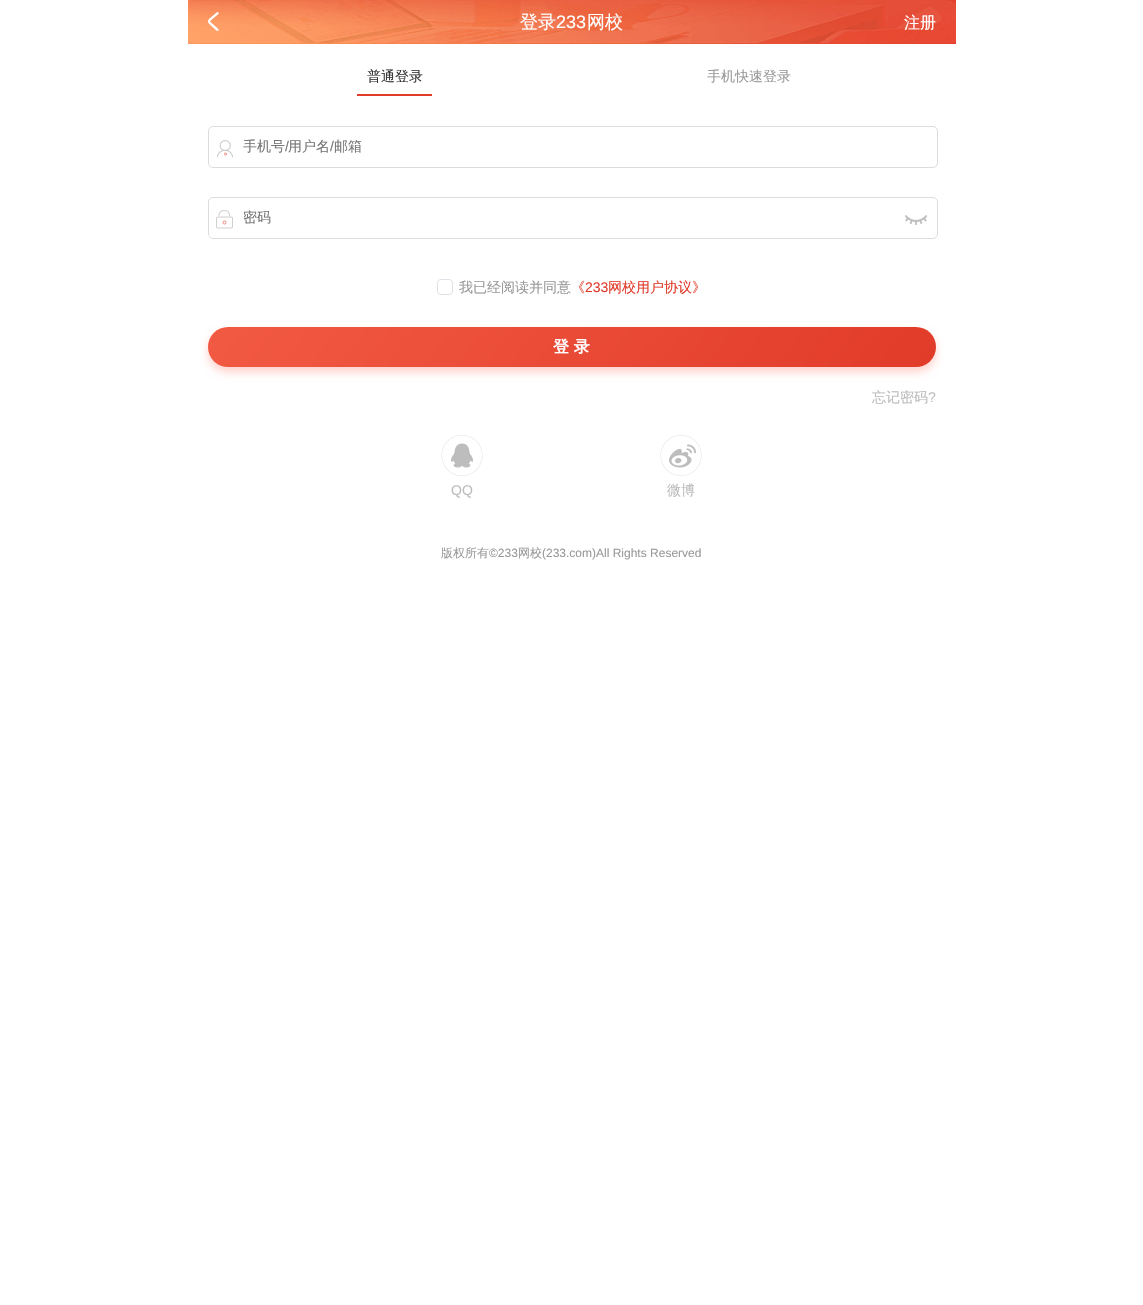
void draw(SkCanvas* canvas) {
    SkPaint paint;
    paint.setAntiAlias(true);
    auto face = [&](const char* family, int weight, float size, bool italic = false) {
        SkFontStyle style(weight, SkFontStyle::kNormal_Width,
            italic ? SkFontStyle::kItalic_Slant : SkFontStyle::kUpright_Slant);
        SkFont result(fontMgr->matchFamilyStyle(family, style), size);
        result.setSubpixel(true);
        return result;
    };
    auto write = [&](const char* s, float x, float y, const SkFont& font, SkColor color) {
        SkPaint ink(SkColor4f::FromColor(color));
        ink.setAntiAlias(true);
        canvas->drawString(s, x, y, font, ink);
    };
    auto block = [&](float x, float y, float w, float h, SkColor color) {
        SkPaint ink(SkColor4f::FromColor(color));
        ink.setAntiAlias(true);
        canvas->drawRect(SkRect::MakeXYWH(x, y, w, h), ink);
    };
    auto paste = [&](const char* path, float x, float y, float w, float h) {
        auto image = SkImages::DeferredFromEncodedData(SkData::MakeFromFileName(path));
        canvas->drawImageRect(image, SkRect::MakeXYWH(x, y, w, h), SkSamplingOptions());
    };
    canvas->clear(SK_ColorWHITE);
    paste("pic1.png", 188, 0, 768, 44);
    paste("pic2.png", 208, 12, 11, 19);
    auto kFont1 = face("WenQuanYi Zen Hei", 500, 18);
    write("登录", 520, 28, kFont1, SK_ColorWHITE);
    auto kFont2 = face("Liberation Sans", 400, 18);
    write("233", 556, 28, kFont2, SK_ColorWHITE);
    write("网校", 587, 28, kFont1, SK_ColorWHITE);
    auto kFont3 = face("WenQuanYi Zen Hei", 500, 16);
    write("注册", 904, 28, kFont3, SK_ColorWHITE);
    block(357, 94, 75, 2, SkColorSetRGB(225, 59, 41));
    auto kFont4 = face("WenQuanYi Zen Hei", 500, 14);
    write("普通登录", 367, 81, kFont4, SkColorSetRGB(51, 51, 51));
    write("手机快速登录", 707, 81, kFont4, SkColorSetRGB(153, 153, 153));
    paint.setStyle(SkPaint::kStroke_Style);
    paint.setStrokeWidth(1);
    paint.setColor(SkColorSetRGB(220, 220, 220));
    canvas->drawRoundRect(SkRect::MakeXYWH(208.5f, 126.5f, 729, 41), 4.5f, 4.5f, paint);
    paint.setStyle(SkPaint::kFill_Style);
    paint.setColor(SK_ColorWHITE);
    canvas->drawPath(SkPathBuilder().moveTo(213, 127).lineTo(898, 127).lineTo(898, 167).lineTo(213, 167).cubicTo(211, 167, 209, 165, 209, 163).lineTo(209, 131).cubicTo(209, 129, 211, 127, 213, 127).close().detach(), paint);
    paste("pic3.png", 217, 140, 16, 18);
    write("手机号", 243, 151, kFont4, SkColorSetRGB(117, 117, 117));
    auto kFont5 = face("Liberation Sans", 400, 14);
    write("/", 285, 151, kFont5, SkColorSetRGB(117, 117, 117));
    write("用户名", 288, 151, kFont4, SkColorSetRGB(117, 117, 117));
    write("/", 330, 151, kFont5, SkColorSetRGB(117, 117, 117));
    write("邮箱", 334, 151, kFont4, SkColorSetRGB(117, 117, 117));
    paint.setStyle(SkPaint::kStroke_Style);
    paint.setColor(SkColorSetRGB(220, 220, 220));
    canvas->drawRoundRect(SkRect::MakeXYWH(208.5f, 197.5f, 729, 41), 4.5f, 4.5f, paint);
    paint.setStyle(SkPaint::kFill_Style);
    paint.setColor(SK_ColorWHITE);
    canvas->drawPath(SkPathBuilder().moveTo(213, 198).lineTo(898, 198).lineTo(898, 238).lineTo(213, 238).cubicTo(211, 238, 209, 236, 209, 234).lineTo(209, 202).cubicTo(209, 200, 211, 198, 213, 198).close().detach(), paint);
    paste("pic4.png", 216, 210, 17, 19);
    write("密码", 243, 222, kFont4, SkColorSetRGB(117, 117, 117));
    paste("pic5.png", 905, 215, 22, 10);
    paint.setStyle(SkPaint::kStroke_Style);
    paint.setColor(SkColorSetRGB(225, 226, 232));
    canvas->drawRoundRect(SkRect::MakeXYWH(437.5f, 279.5f, 15, 15), 3.5f, 3.5f, paint);
    write("我已经阅读并同意", 459, 292, kFont4, SkColorSetRGB(153, 153, 153));
    write("《", 571, 292, kFont4, SkColorSetRGB(225, 59, 41));
    write("233", 585, 292, kFont5, SkColorSetRGB(225, 59, 41));
    write("网校用户协议》", 608, 292, kFont4, SkColorSetRGB(225, 59, 41));
    paint.setStyle(SkPaint::kFill_Style);
    paint.setColor(SkColorSetRGB(255, 210, 205));
    paint.setMaskFilter(SkMaskFilter::MakeBlur(kNormal_SkBlurStyle, 4));
    canvas->drawRoundRect(SkRect::MakeXYWH(208, 332, 728, 40), 20, 20, paint);
    paint.setMaskFilter(nullptr);
    {
        const SkColor colors[] = {SkColorSetRGB(242, 90, 67), SkColorSetRGB(225, 59, 41)};
        const float stops[] = {0, 1};
        const SkPoint ends[] = {{336, 163}, {808, 531}};
        paint.setShader(SkGradientShader::MakeLinear(ends, colors, stops, 2, SkTileMode::kClamp));
        paint.setAlpha(255);
    }
    canvas->drawRoundRect(SkRect::MakeXYWH(208, 327, 728, 40), 20, 20, paint);
    auto kFont6 = face("WenQuanYi Zen Hei", 700, 16);
    write("登 录", 553, 352, kFont6, SK_ColorWHITE);
    write("忘记密码", 872, 402, kFont4, SkColorSetRGB(187, 187, 187));
    write("?", 928, 402, kFont5, SkColorSetRGB(187, 187, 187));
    paste("pic6.png", 441, 435, 42, 41);
    write("QQ", 451, 495, kFont5, SkColorSetRGB(187, 187, 187));
    paste("pic7.png", 660, 435, 42, 41);
    write("微博", 667, 495, kFont4, SkColorSetRGB(187, 187, 187));
    auto kFont7 = face("WenQuanYi Zen Hei", 500, 12);
    write("版权所有", 441, 557, kFont7, SkColorSetRGB(153, 153, 153));
    auto kFont8 = face("Liberation Sans", 400, 12);
    write("©233", 489, 557, kFont8, SkColorSetRGB(153, 153, 153));
    write("网校", 518, 557, kFont7, SkColorSetRGB(153, 153, 153));
    write("(233.com)All Rights Reserved", 542, 557, kFont8, SkColorSetRGB(153, 153, 153));
}
